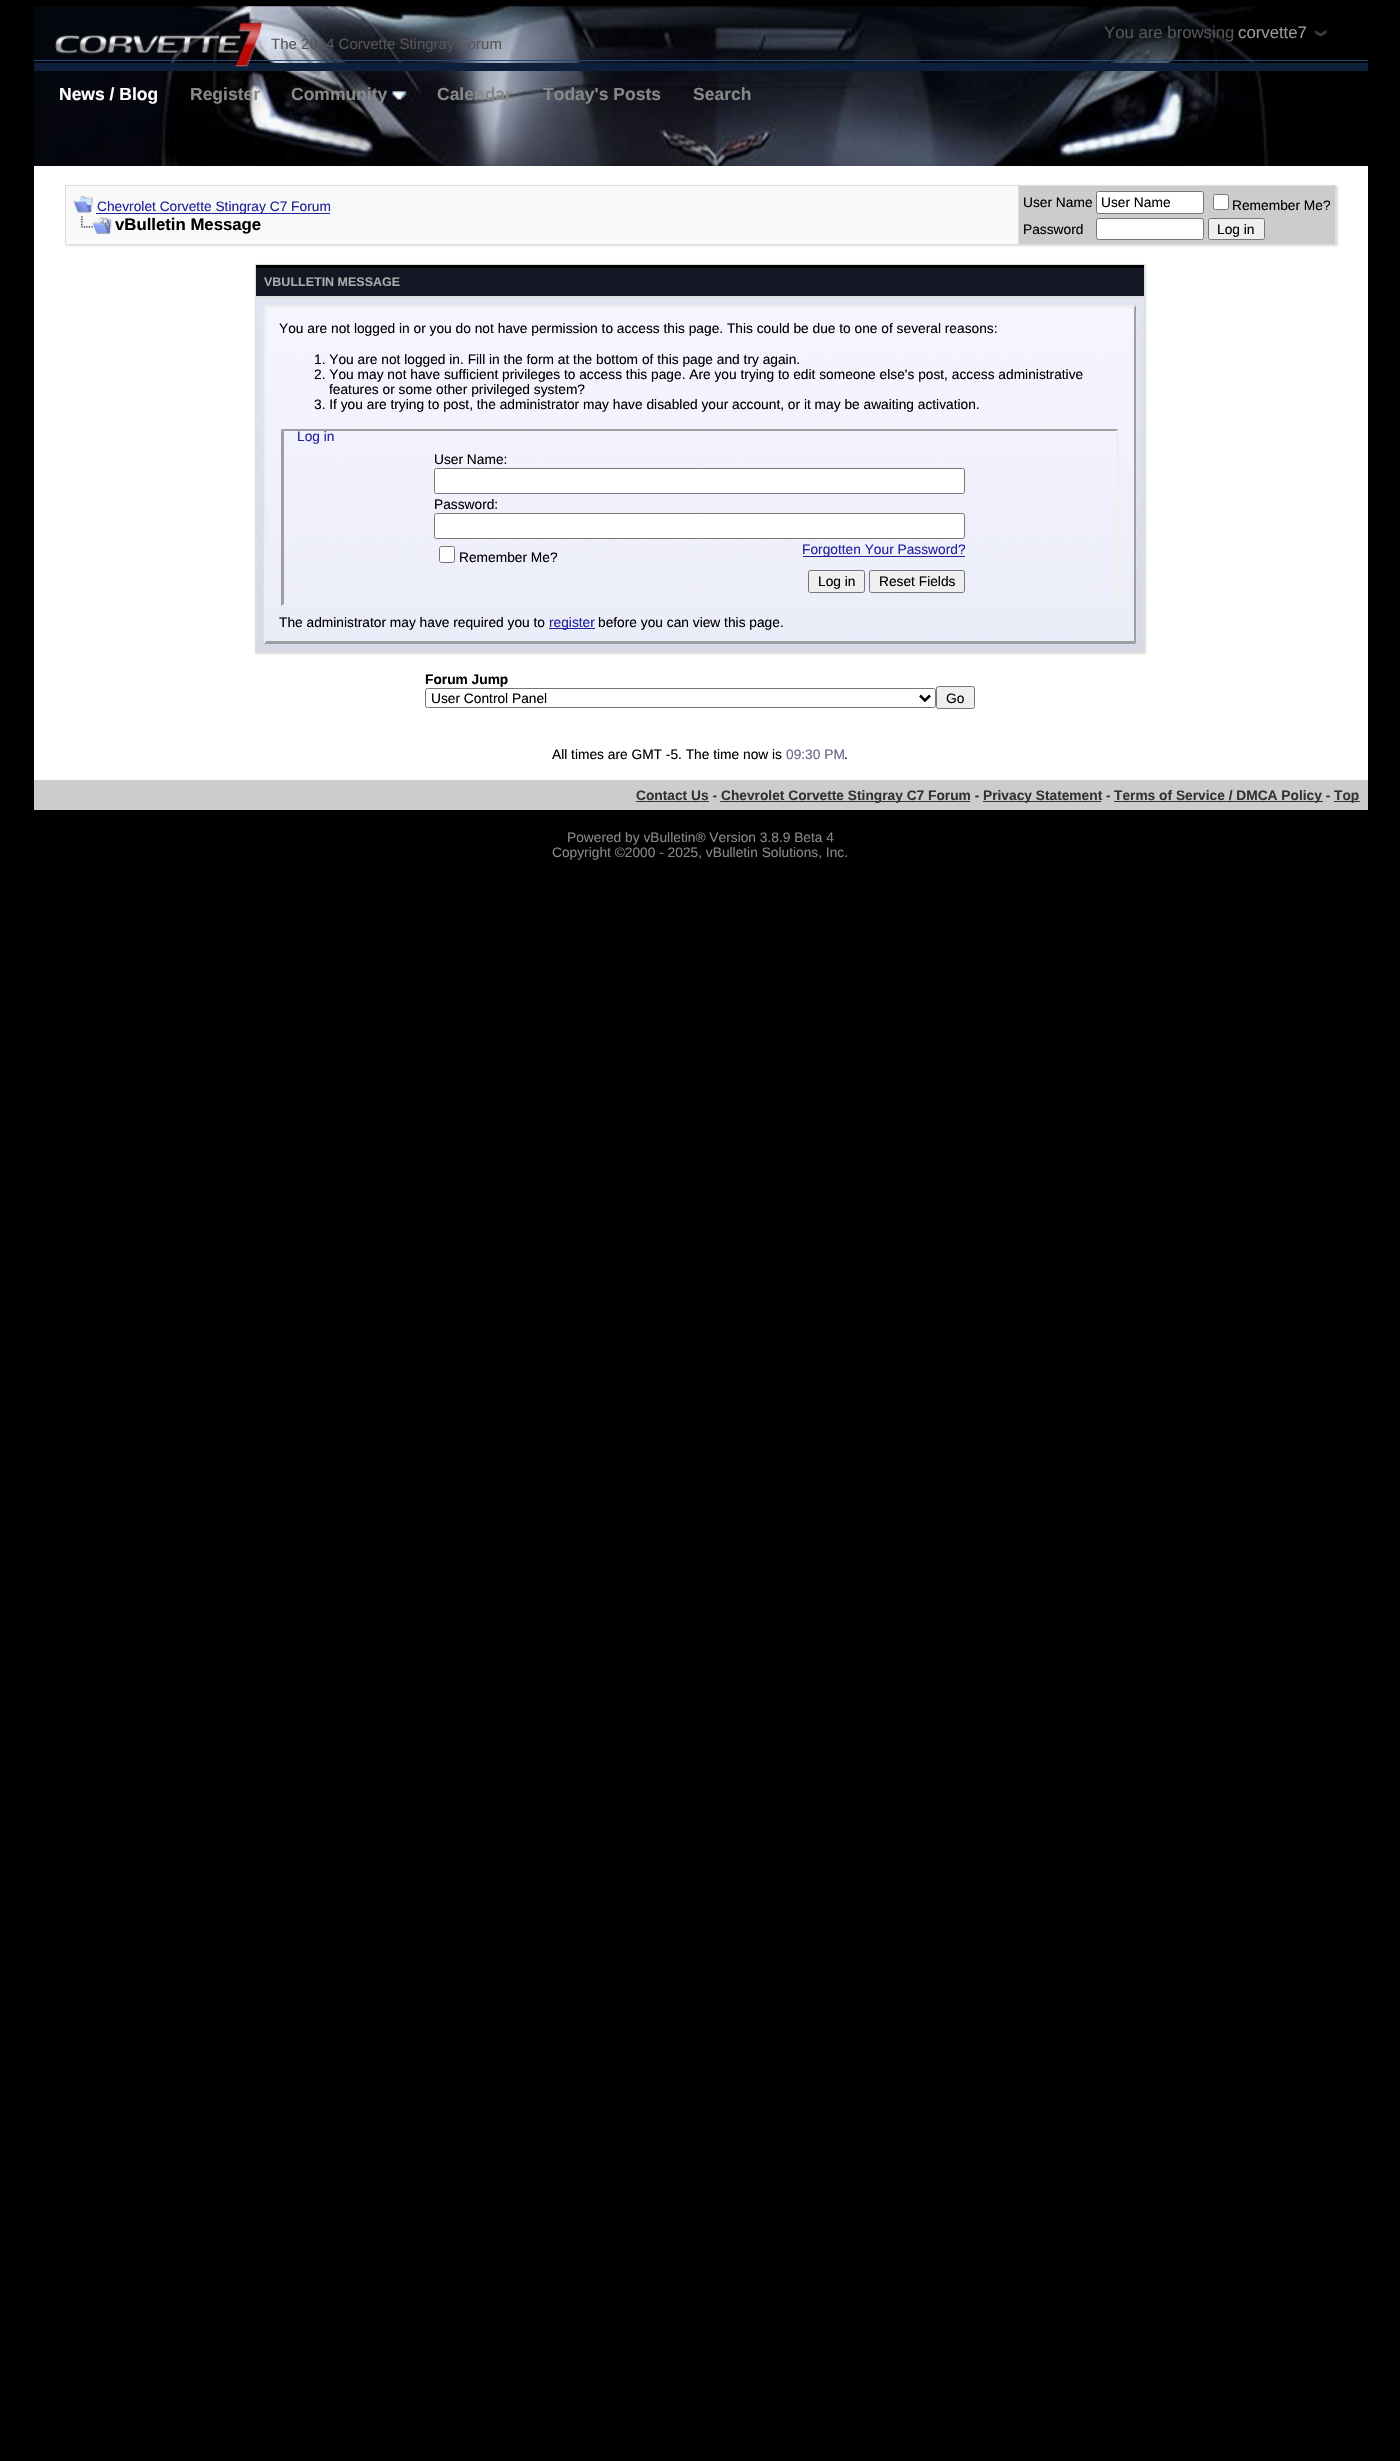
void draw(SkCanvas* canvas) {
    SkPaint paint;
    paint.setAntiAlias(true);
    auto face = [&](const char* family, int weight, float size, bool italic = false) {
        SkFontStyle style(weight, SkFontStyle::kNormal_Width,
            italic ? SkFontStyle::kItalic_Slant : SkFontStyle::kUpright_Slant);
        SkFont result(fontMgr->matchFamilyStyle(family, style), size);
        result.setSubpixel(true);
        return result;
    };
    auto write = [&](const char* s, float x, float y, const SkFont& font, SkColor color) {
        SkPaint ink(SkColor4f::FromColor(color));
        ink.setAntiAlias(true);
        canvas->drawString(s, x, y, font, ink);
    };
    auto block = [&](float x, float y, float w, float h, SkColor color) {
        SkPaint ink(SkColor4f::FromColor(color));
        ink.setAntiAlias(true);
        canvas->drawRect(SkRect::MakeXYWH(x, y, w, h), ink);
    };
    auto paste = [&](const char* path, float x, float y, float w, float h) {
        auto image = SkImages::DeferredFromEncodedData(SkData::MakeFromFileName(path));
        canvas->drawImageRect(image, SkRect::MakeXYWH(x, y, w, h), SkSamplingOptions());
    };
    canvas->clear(SK_ColorBLACK);
    paste("pic2.png", 34, 6, 1235, 160);
    auto kFont1 = face("Liberation Sans", 400, 16.75f);
    write("You are browsing", 1104, 38, kFont1, SkColorSetRGB(85, 85, 85));
    write("corvette7", 1238, 38, kFont1, SkColorSetRGB(153, 153, 153));
    paste("pic1.png", 1314, 30, 14, 7);
    block(34, 60, 1334, 1, SkColorSetRGB(34, 73, 128));
    block(34, 63, 1334, 8, SkColorSetRGB(13, 31, 57));
    paste("pic3.png", 55, 22, 208, 45);
    auto kFont2 = face("Liberation Sans", 400, 15);
    write("The 2014 Corvette Stingray Forum", 271, 49, kFont2, SkColorSetRGB(85, 85, 85));
    auto kFont3 = face("Liberation Sans", 700, 17.5f);
    write("News / Blog", 59, 100, kFont3, SK_ColorWHITE);
    write("Register", 190, 100, kFont3, SkColorSetRGB(136, 136, 136));
    write("Community", 291, 100, kFont3, SkColorSetRGB(136, 136, 136));
    paste("pic4.png", 392, 91, 15, 9);
    write("Calendar", 437, 100, kFont3, SkColorSetRGB(136, 136, 136));
    write("Today's Posts", 543, 100, kFont3, SkColorSetRGB(136, 136, 136));
    write("Search", 693, 100, kFont3, SkColorSetRGB(136, 136, 136));
    block(34, 166, 1334, 614, SK_ColorWHITE);
    paint.setColor(SkColorSetRGB(221, 221, 221));
    paint.setMaskFilter(SkMaskFilter::MakeBlur(kNormal_SkBlurStyle, 1));
    canvas->drawRect(SkRect::MakeXYWH(66, 186, 1272, 60), paint);
    paint.setMaskFilter(nullptr);
    block(65, 185, 1271, 60, SkColorSetRGB(221, 221, 221));
    block(66, 186, 952, 58, SkColorSetRGB(249, 249, 249));
    paste("pic5.png", 73, 196, 20, 17);
    block(96, 213, 234, 1, SkColorSetRGB(34, 34, 156));
    auto kFont4 = face("Liberation Sans", 400, 13.75f);
    write("Chevrolet Corvette Stingray C7 Forum", 97, 211, kFont4, SkColorSetRGB(34, 34, 156));
    paste("pic6.png", 81, 216, 31, 18);
    auto kFont5 = face("Liberation Sans", 700, 16.75f);
    write("vBulletin Message", 115, 230, kFont5, SK_ColorBLACK);
    block(1019, 186, 316, 58, SkColorSetRGB(204, 204, 204));
    write("User Name", 1023, 207, kFont4, SK_ColorBLACK);
    paint.setColor(SK_ColorWHITE);
    canvas->drawRoundRect(SkRect::MakeXYWH(1096.5f, 191.5f, 107, 22), 2, 2, paint);
    paint.setStyle(SkPaint::kStroke_Style);
    paint.setStrokeWidth(1);
    paint.setColor(SkColorSetRGB(118, 118, 118));
    canvas->drawRoundRect(SkRect::MakeXYWH(1096.5f, 191.5f, 107, 22), 2, 2, paint);
    write("User Name", 1101, 207, kFont4, SK_ColorBLACK);
    paint.setStyle(SkPaint::kFill_Style);
    paint.setColor(SK_ColorWHITE);
    canvas->drawRoundRect(SkRect::MakeXYWH(1213.5f, 194.5f, 15, 15), 2, 2, paint);
    paint.setStyle(SkPaint::kStroke_Style);
    paint.setColor(SkColorSetRGB(118, 118, 118));
    canvas->drawRoundRect(SkRect::MakeXYWH(1213.5f, 194.5f, 15, 15), 2, 2, paint);
    write("Remember Me?", 1232, 210, kFont4, SK_ColorBLACK);
    write("Password", 1023, 234, kFont4, SK_ColorBLACK);
    paint.setStyle(SkPaint::kFill_Style);
    paint.setColor(SK_ColorWHITE);
    canvas->drawRoundRect(SkRect::MakeXYWH(1096.5f, 218.5f, 107, 21), 2, 2, paint);
    paint.setStyle(SkPaint::kStroke_Style);
    paint.setColor(SkColorSetRGB(118, 118, 118));
    canvas->drawRoundRect(SkRect::MakeXYWH(1096.5f, 218.5f, 107, 21), 2, 2, paint);
    paint.setStyle(SkPaint::kFill_Style);
    paint.setColor(SkColorSetRGB(239, 239, 239));
    canvas->drawRoundRect(SkRect::MakeXYWH(1208.5f, 218.5f, 56, 21), 2, 2, paint);
    paint.setStyle(SkPaint::kStroke_Style);
    paint.setColor(SkColorSetRGB(118, 118, 118));
    canvas->drawRoundRect(SkRect::MakeXYWH(1208.5f, 218.5f, 56, 21), 2, 2, paint);
    write("Log in", 1217, 234, kFont4, SK_ColorBLACK);
    paint.setStyle(SkPaint::kFill_Style);
    paint.setColor(SkColorSetRGB(221, 221, 221));
    paint.setMaskFilter(SkMaskFilter::MakeBlur(kNormal_SkBlurStyle, 1));
    canvas->drawRect(SkRect::MakeXYWH(256, 265, 890, 389), paint);
    paint.setMaskFilter(nullptr);
    block(255, 264, 890, 389, SkColorSetRGB(221, 221, 221));
    block(256, 268, 888, 28, SkColorSetRGB(19, 22, 35));
    block(256, 265, 888, 3, SK_ColorBLACK);
    auto kFont6 = face("Liberation Sans", 700, 12.5f);
    write("VBULLETIN MESSAGE", 264, 286, kFont6, SkColorSetRGB(170, 170, 170));
    paste("pic7.png", 256, 297, 888, 354);
    paste("pic8.png", 263, 307, 874, 337);
    paint.setColor(SkColorSetRGB(238, 238, 238));
    canvas->drawPath(SkPathBuilder().moveTo(264, 305).lineTo(1136, 305).lineTo(1134, 308).lineTo(266, 308).close().detach(), paint);
    paint.setColor(SkColorSetRGB(159, 159, 159));
    canvas->drawPath(SkPathBuilder().moveTo(1136, 305).lineTo(1136, 644).lineTo(1134, 641).lineTo(1134, 308).close().detach(), paint);
    canvas->drawPath(SkPathBuilder().moveTo(1136, 644).lineTo(264, 644).lineTo(266, 641).lineTo(1134, 641).close().detach(), paint);
    paint.setColor(SkColorSetRGB(238, 238, 238));
    canvas->drawPath(SkPathBuilder().moveTo(264, 644).lineTo(264, 305).lineTo(266, 308).lineTo(266, 641).close().detach(), paint);
    write("You are not logged in or you do not have permission to access this page. This could be due to one of several reasons:", 279, 333, kFont4, SK_ColorBLACK);
    write("1. You are not logged in. Fill in the form at the bottom of this page and try again.", 314, 364, kFont4, SK_ColorBLACK);
    write("2. You may not have sufficient privileges to access this page. Are you trying to edit someone else's post, access administrative", 314, 379, kFont4, SK_ColorBLACK);
    write("features or some other privileged system?", 329, 394, kFont4, SK_ColorBLACK);
    write("3. If you are trying to post, the administrator may have disabled your account, or it may be awaiting activation.", 314, 409, kFont4, SK_ColorBLACK);
    paint.setColor(SkColorSetRGB(159, 159, 159));
    canvas->drawPath(SkPathBuilder().moveTo(281, 429).lineTo(1119, 429).lineTo(1116, 431).lineTo(284, 431).close().detach(), paint);
    paint.setColor(SkColorSetRGB(239, 239, 239));
    canvas->drawPath(SkPathBuilder().moveTo(1119, 429).lineTo(1119, 606).lineTo(1116, 604).lineTo(1116, 431).close().detach(), paint);
    canvas->drawPath(SkPathBuilder().moveTo(1119, 606).lineTo(281, 606).lineTo(284, 604).lineTo(1116, 604).close().detach(), paint);
    paint.setColor(SkColorSetRGB(159, 159, 159));
    canvas->drawPath(SkPathBuilder().moveTo(281, 606).lineTo(281, 429).lineTo(284, 431).lineTo(284, 604).close().detach(), paint);
    write("Log in", 297, 441, kFont4, SkColorSetRGB(34, 34, 156));
    write("User Name:", 434, 464, kFont4, SK_ColorBLACK);
    paint.setColor(SK_ColorWHITE);
    canvas->drawRoundRect(SkRect::MakeXYWH(434.5f, 468.5f, 530, 25), 2, 2, paint);
    paint.setStyle(SkPaint::kStroke_Style);
    paint.setColor(SkColorSetRGB(118, 118, 118));
    canvas->drawRoundRect(SkRect::MakeXYWH(434.5f, 468.5f, 530, 25), 2, 2, paint);
    write("Password:", 434, 509, kFont4, SK_ColorBLACK);
    paint.setStyle(SkPaint::kFill_Style);
    paint.setColor(SK_ColorWHITE);
    canvas->drawRoundRect(SkRect::MakeXYWH(434.5f, 513.5f, 530, 25), 2, 2, paint);
    paint.setStyle(SkPaint::kStroke_Style);
    paint.setColor(SkColorSetRGB(118, 118, 118));
    canvas->drawRoundRect(SkRect::MakeXYWH(434.5f, 513.5f, 530, 25), 2, 2, paint);
    paint.setStyle(SkPaint::kFill_Style);
    paint.setColor(SK_ColorWHITE);
    canvas->drawRoundRect(SkRect::MakeXYWH(439.5f, 546.5f, 15, 16), 2, 2, paint);
    paint.setStyle(SkPaint::kStroke_Style);
    paint.setColor(SkColorSetRGB(118, 118, 118));
    canvas->drawRoundRect(SkRect::MakeXYWH(439.5f, 546.5f, 15, 16), 2, 2, paint);
    write("Remember Me?", 459, 562, kFont4, SK_ColorBLACK);
    block(803, 556, 162, 1, SkColorSetRGB(34, 34, 156));
    write("Forgotten Your Password?", 802, 554, kFont4, SkColorSetRGB(34, 34, 156));
    paint.setStyle(SkPaint::kFill_Style);
    paint.setColor(SkColorSetRGB(239, 239, 239));
    canvas->drawRoundRect(SkRect::MakeXYWH(808.5f, 570.5f, 56, 22), 2, 2, paint);
    paint.setStyle(SkPaint::kStroke_Style);
    paint.setColor(SkColorSetRGB(118, 118, 118));
    canvas->drawRoundRect(SkRect::MakeXYWH(808.5f, 570.5f, 56, 22), 2, 2, paint);
    write("Log in", 818, 586, kFont4, SK_ColorBLACK);
    paint.setStyle(SkPaint::kFill_Style);
    paint.setColor(SkColorSetRGB(239, 239, 239));
    canvas->drawRoundRect(SkRect::MakeXYWH(869.5f, 570.5f, 95, 22), 2, 2, paint);
    paint.setStyle(SkPaint::kStroke_Style);
    paint.setColor(SkColorSetRGB(118, 118, 118));
    canvas->drawRoundRect(SkRect::MakeXYWH(869.5f, 570.5f, 95, 22), 2, 2, paint);
    write("Reset Fields", 879, 586, kFont4, SK_ColorBLACK);
    write("The administrator may have required you to", 279, 627, kFont4, SK_ColorBLACK);
    block(549, 628, 46, 1, SkColorSetRGB(34, 34, 156));
    write("register", 549, 627, kFont4, SkColorSetRGB(34, 34, 156));
    write("before you can view this page.", 598, 627, kFont4, SK_ColorBLACK);
    auto kFont7 = face("Liberation Sans", 700, 13.75f);
    write("Forum Jump", 425, 684, kFont7, SK_ColorBLACK);
    canvas->drawRoundRect(SkRect::MakeXYWH(425.5f, 688.5f, 510, 19), 2, 2, paint);
    paint.setStrokeWidth(2.5f);
    paint.setColor(SK_ColorBLACK);
    canvas->drawPath(SkPathBuilder().moveTo(920, 695.5f).lineTo(925, 700.5f).lineTo(930, 695.5f).detach(), paint);
    write("User Control Panel", 431, 703, kFont4, SK_ColorBLACK);
    paint.setStyle(SkPaint::kFill_Style);
    paint.setColor(SkColorSetRGB(239, 239, 239));
    canvas->drawRoundRect(SkRect::MakeXYWH(936.5f, 686.5f, 38, 22), 2, 2, paint);
    paint.setStyle(SkPaint::kStroke_Style);
    paint.setStrokeWidth(1);
    paint.setColor(SkColorSetRGB(118, 118, 118));
    canvas->drawRoundRect(SkRect::MakeXYWH(936.5f, 686.5f, 38, 22), 2, 2, paint);
    write("Go", 946, 703, kFont4, SK_ColorBLACK);
    write("All times are GMT -5. The time now is", 552, 759, kFont4, SK_ColorBLACK);
    write("09:30 PM", 786, 759, kFont4, SkColorSetRGB(102, 102, 134));
    write(".", 844, 759, kFont4, SK_ColorBLACK);
    block(34, 780, 1334, 30, SkColorSetRGB(204, 204, 204));
    write("Contact Us -", 636, 800, kFont7, SkColorSetRGB(51, 51, 51));
    block(636, 801, 73, 1, SkColorSetRGB(51, 51, 51));
    block(720, 801, 250, 1, SkColorSetRGB(51, 51, 51));
    write("Chevrolet Corvette Stingray C7 Forum -", 721, 800, kFont7, SkColorSetRGB(51, 51, 51));
    block(983, 801, 118, 1, SkColorSetRGB(51, 51, 51));
    write("Privacy Statement -", 983, 800, kFont7, SkColorSetRGB(51, 51, 51));
    block(1114, 801, 209, 1, SkColorSetRGB(51, 51, 51));
    write("Terms of Service / DMCA Policy -", 1114, 800, kFont7, SkColorSetRGB(51, 51, 51));
    block(1334, 801, 26, 1, SkColorSetRGB(51, 51, 51));
    write("Top", 1334, 800, kFont7, SkColorSetRGB(51, 51, 51));
    write("Powered by vBulletin® Version 3.8.9 Beta 4", 567, 842, kFont4, SkColorSetRGB(136, 136, 136));
    write("Copyright ©2000 - 2025, vBulletin Solutions, Inc.", 552, 857, kFont4, SkColorSetRGB(136, 136, 136));
}
